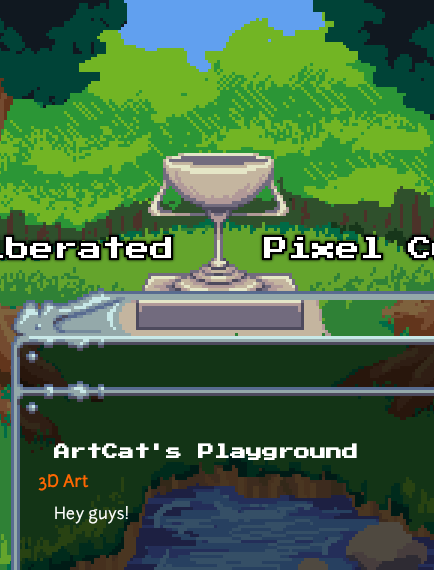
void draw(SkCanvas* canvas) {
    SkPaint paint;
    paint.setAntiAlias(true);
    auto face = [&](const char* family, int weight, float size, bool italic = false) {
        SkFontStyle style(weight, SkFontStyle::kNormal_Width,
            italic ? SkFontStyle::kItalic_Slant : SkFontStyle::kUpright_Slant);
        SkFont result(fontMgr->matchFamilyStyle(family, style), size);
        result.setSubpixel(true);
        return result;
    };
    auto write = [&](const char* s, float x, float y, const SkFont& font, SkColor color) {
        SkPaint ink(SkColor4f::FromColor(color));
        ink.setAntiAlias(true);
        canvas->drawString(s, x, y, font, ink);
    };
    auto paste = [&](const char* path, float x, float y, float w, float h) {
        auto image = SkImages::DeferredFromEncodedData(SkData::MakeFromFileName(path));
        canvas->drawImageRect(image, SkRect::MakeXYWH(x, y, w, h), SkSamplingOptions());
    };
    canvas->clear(SK_ColorWHITE);
    paste("pic1.png", 0, 0, 434, 570);
    paste("pic2.png", 0, 232, 434, 31);
    paste("pic3.png", 11, 288, 423, 126);
    paste("pic4.png", 11, 414, 423, 156);
    auto kFont1 = face("Press Start 2P", 700, 16);
    write("ArtCat's Playground", 54, 460, kFont1, SK_ColorWHITE);
    auto kFont2 = face("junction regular", 700, 16);
    write("3D Art", 38, 487, kFont2, SkColorSetRGB(255, 103, 1));
    auto kFont3 = face("junction regular", 400, 16);
    write("Hey guys!", 54, 519, kFont3, SK_ColorWHITE);
}
